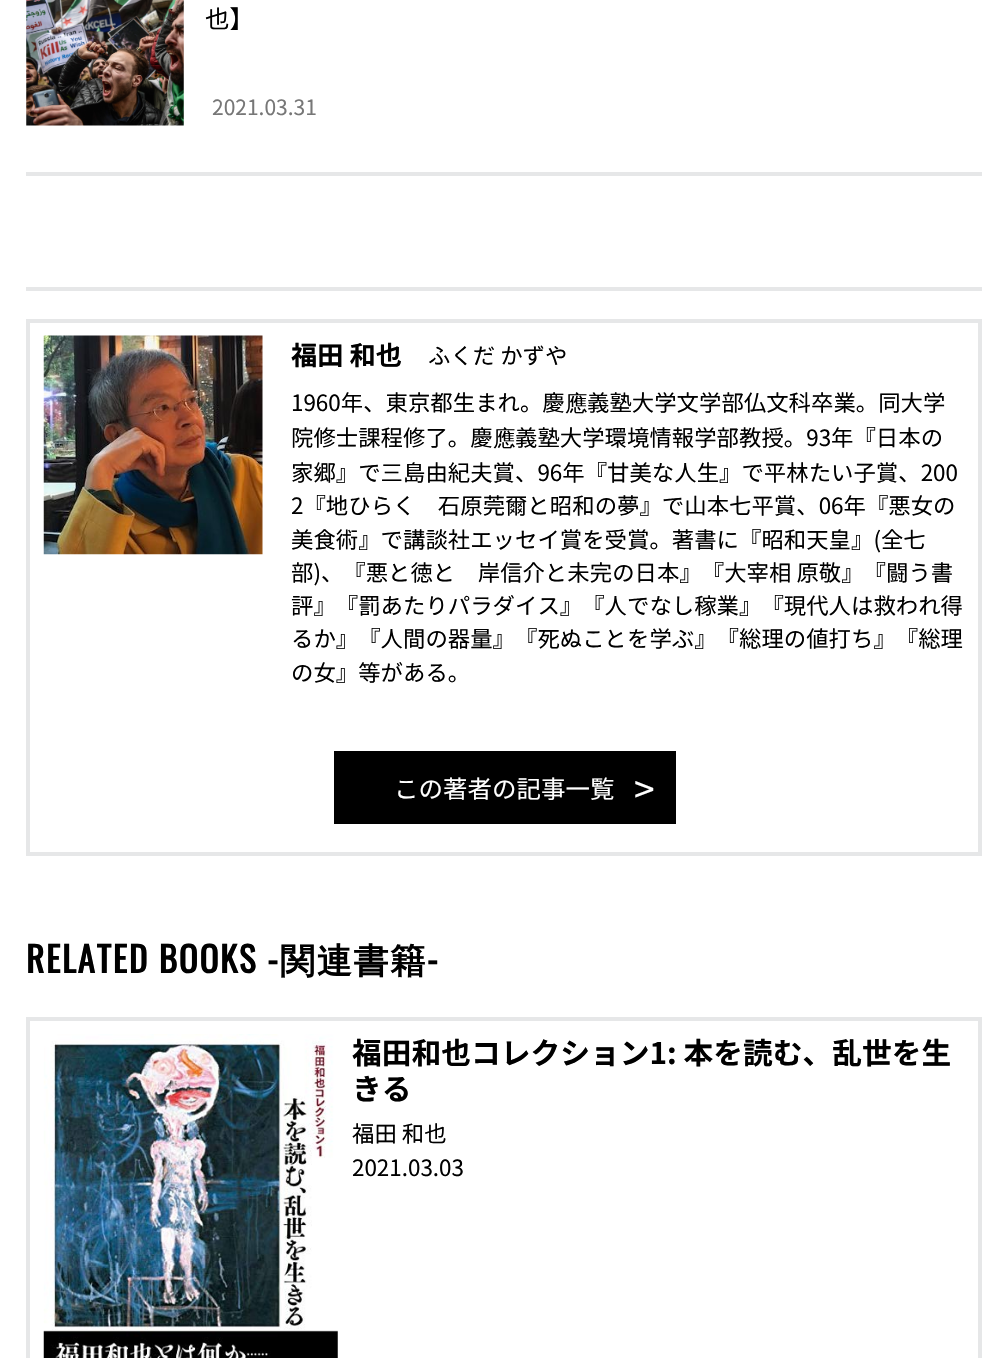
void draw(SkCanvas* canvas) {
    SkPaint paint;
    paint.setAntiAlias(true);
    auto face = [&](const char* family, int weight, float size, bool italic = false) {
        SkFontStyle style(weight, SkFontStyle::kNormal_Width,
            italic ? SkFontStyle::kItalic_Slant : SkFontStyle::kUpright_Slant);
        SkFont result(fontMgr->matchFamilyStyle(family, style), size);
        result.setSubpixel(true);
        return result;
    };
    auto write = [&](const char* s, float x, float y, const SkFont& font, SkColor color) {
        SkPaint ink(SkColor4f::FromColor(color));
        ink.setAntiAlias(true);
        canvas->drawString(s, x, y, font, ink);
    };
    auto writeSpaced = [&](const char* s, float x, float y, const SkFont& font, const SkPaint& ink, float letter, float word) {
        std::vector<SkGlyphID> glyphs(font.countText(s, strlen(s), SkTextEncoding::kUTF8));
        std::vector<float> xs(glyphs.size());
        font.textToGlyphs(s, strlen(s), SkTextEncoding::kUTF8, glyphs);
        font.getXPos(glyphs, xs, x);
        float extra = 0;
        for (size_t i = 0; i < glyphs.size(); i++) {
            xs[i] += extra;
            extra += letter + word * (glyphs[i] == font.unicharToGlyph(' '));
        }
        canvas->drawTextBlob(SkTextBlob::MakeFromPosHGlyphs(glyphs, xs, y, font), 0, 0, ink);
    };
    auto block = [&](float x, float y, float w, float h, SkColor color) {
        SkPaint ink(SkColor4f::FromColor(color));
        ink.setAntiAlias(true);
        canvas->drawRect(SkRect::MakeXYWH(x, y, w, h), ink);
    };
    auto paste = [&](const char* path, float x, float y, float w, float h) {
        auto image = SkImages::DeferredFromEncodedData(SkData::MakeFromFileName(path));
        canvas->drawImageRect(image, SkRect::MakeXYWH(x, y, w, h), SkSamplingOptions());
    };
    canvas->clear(SK_ColorWHITE);
    block(26, 172, 956, 4, SkColorSetRGB(230, 231, 232));
    paste("pic1.png", 26, 0, 158, 126);
    auto kFont1 = face("Noto Sans JP", 400, 24.5f);
    write("也】", 205, 28, kFont1, SK_ColorBLACK);
    auto kFont2 = face("Noto Sans JP", 400, 21);
    write("2021.03.31", 212, 115, kFont2, SkColorSetRGB(119, 119, 119));
    block(26, 287, 956, 4, SkColorSetRGB(230, 231, 232));
    paint.setStyle(SkPaint::kStroke_Style);
    paint.setStrokeWidth(4);
    paint.setColor(SkColorSetRGB(230, 231, 232));
    canvas->drawRect(SkRect::MakeXYWH(28, 321, 952, 533), paint);
    paste("pic2.png", 43, 335, 220, 220);
    auto kFont3 = face("Noto Sans JP", 700, 26.25f);
    write("福田 和也", 291, 365, kFont3, SK_ColorBLACK);
    auto kFont4 = face("Noto Sans JP", 400, 22.4f);
    write("ふくだ かずや", 428, 364, kFont4, SK_ColorBLACK);
    write("1960年、東京都生まれ。慶", 291, 411, kFont4, SK_ColorBLACK);
    auto kFont5 = face("WenQuanYi Zen Hei", 500, 22.4f);
    write("應", 565, 411, kFont5, SK_ColorBLACK);
    write("義塾大学文学部仏文科卒業。同大学", 587, 411, kFont4, SK_ColorBLACK);
    write("院修士課程修了。慶", 291, 446, kFont4, SK_ColorBLACK);
    write("應", 493, 446, kFont5, SK_ColorBLACK);
    write("義塾大学環境情報学部教授。93年『日本の", 515, 446, kFont4, SK_ColorBLACK);
    write("家郷』で三島由紀夫賞、96年『甘美な人生』で平林たい子賞、200", 291, 481, kFont4, SK_ColorBLACK);
    write("2『地ひらく　石原莞爾と昭和の夢』で山本七平賞、06年『悪女の", 291, 514, kFont4, SK_ColorBLACK);
    write("美食術』で講談社エッセイ賞を受賞。著書に『昭和天皇』(全七", 291, 548, kFont4, SK_ColorBLACK);
    write("部)、『悪と徳と　岸信介と未完の日本』『大宰相 原敬』『闘う書", 291, 581, kFont4, SK_ColorBLACK);
    write("評』『罰あたりパラダイス』『人でなし稼業』『現代人は救われ得", 291, 614, kFont4, SK_ColorBLACK);
    write("るか』『人間の器量』『死ぬことを学ぶ』『総理の値打ち』『総理", 291, 647, kFont4, SK_ColorBLACK);
    write("の女』等がある。", 291, 681, kFont4, SK_ColorBLACK);
    block(334, 751, 342, 73, SK_ColorBLACK);
    write("この著者の記事一覧", 394, 798, kFont1, SK_ColorWHITE);
    auto kFont6 = face("Noto Sans JP", 400, 37);
    paint.setStyle(SkPaint::kFill_Style);
    paint.setColor(SK_ColorWHITE);
    writeSpaced(">", 634, 803, kFont6, paint, -10, 0);
    auto kFont7 = face("Oswald", 700, 35);
    paint.setColor(SK_ColorBLACK);
    writeSpaced("RELATED BOOKS -", 26, 973, kFont7, paint, 1.75f, 0);
    auto kFont8 = face("WenQuanYi Zen Hei", 700, 35);
    writeSpaced("関連書籍", 280, 973, kFont8, paint, 1.75f, 0);
    writeSpaced("-", 427, 973, kFont7, paint, 1.75f, 0);
    paint.setStyle(SkPaint::kStroke_Style);
    paint.setColor(SkColorSetRGB(230, 231, 232));
    canvas->drawRect(SkRect::MakeXYWH(28, 1019, 952, 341), paint);
    paste("pic3.png", 43, 1034, 295, 324);
    auto kFont9 = face("Noto Sans JP", 700, 29.75f);
    write("福田和也コレクション1: 本を読む、乱世を生", 352, 1064, kFont9, SK_ColorBLACK);
    write("きる", 352, 1100, kFont9, SK_ColorBLACK);
    write("福田 和也", 352, 1142, kFont4, SK_ColorBLACK);
    write("2021.03.03", 352, 1176, kFont4, SK_ColorBLACK);
}
